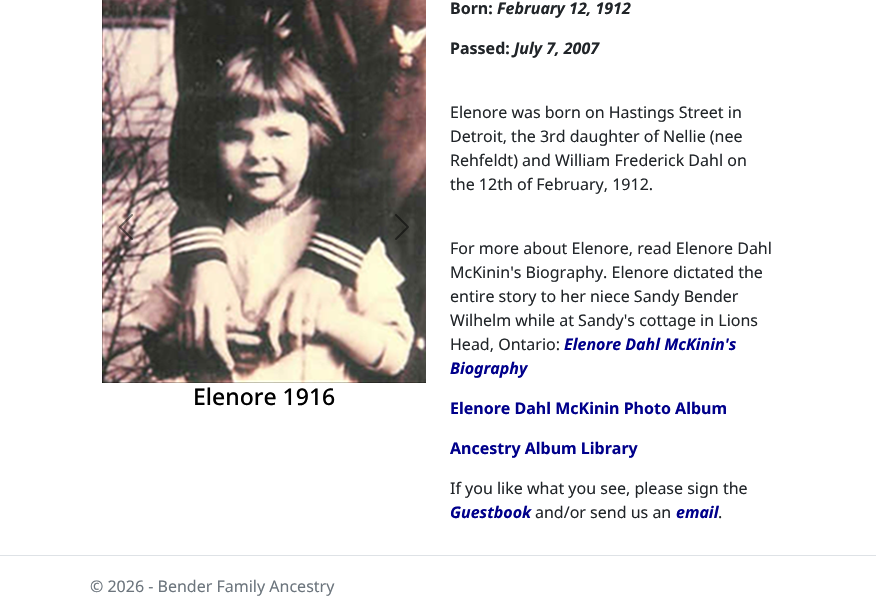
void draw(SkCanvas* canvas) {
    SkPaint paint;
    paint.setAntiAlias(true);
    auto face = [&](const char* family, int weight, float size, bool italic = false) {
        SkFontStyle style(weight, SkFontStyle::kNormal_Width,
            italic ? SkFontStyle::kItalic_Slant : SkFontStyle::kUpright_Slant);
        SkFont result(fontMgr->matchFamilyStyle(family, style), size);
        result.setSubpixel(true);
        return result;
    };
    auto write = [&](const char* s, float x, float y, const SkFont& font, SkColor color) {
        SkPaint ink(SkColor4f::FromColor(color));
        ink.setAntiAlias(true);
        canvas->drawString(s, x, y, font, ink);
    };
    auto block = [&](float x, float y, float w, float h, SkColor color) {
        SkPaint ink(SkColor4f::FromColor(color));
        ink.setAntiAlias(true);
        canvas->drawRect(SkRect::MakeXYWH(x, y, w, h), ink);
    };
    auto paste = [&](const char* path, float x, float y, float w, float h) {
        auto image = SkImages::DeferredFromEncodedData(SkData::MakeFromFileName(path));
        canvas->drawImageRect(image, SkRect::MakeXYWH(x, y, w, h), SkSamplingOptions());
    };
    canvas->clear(SK_ColorWHITE);
    paste("pic3.png", 102, 0, 324, 383);
    paste("pic1.png", 119, 214, 14, 26);
    paste("pic2.png", 395, 214, 14, 26);
    auto kFont1 = face("Noto Sans", 500, 23);
    write("Elenore 1916", 193, 405, kFont1, SK_ColorBLACK);
    auto kFont2 = face("Noto Sans", 700, 16);
    write("Born:", 450, 14, kFont2, SkColorSetRGB(33, 37, 41));
    auto kFont3 = face("Noto Sans", 700, 16, true);
    write("February 12, 1912", 497, 14, kFont3, SkColorSetRGB(33, 37, 41));
    write("Passed:", 450, 54, kFont2, SkColorSetRGB(33, 37, 41));
    write("July 7, 2007", 514, 54, kFont3, SkColorSetRGB(33, 37, 41));
    auto kFont4 = face("Noto Sans", 400, 16);
    write("Elenore was born on Hastings Street in", 450, 118, kFont4, SkColorSetRGB(33, 37, 41));
    write("Detroit, the 3rd daughter of Nellie (nee", 450, 142, kFont4, SkColorSetRGB(33, 37, 41));
    write("Rehfeldt) and William Frederick Dahl on", 450, 166, kFont4, SkColorSetRGB(33, 37, 41));
    write("the 12th of February, 1912.", 450, 190, kFont4, SkColorSetRGB(33, 37, 41));
    write("For more about Elenore, read Elenore Dahl", 450, 254, kFont4, SkColorSetRGB(33, 37, 41));
    write("McKinin's Biography. Elenore dictated the", 450, 278, kFont4, SkColorSetRGB(33, 37, 41));
    write("entire story to her niece Sandy Bender", 450, 302, kFont4, SkColorSetRGB(33, 37, 41));
    write("Wilhelm while at Sandy's cottage in Lions", 450, 326, kFont4, SkColorSetRGB(33, 37, 41));
    write("Head, Ontario:", 450, 350, kFont4, SkColorSetRGB(33, 37, 41));
    write("Elenore Dahl McKinin's", 564, 350, kFont3, SkColorSetRGB(0, 0, 139));
    write("Biography", 450, 374, kFont3, SkColorSetRGB(0, 0, 139));
    write("Elenore Dahl McKinin Photo Album", 450, 414, kFont2, SkColorSetRGB(0, 0, 139));
    write("Ancestry Album Library", 450, 454, kFont2, SkColorSetRGB(0, 0, 139));
    write("If you like what you see, please sign the", 450, 494, kFont4, SkColorSetRGB(33, 37, 41));
    write("Guestbook", 450, 518, kFont3, SkColorSetRGB(0, 0, 139));
    write("and/or send us an", 535, 518, kFont4, SkColorSetRGB(33, 37, 41));
    write("email", 676, 518, kFont3, SkColorSetRGB(0, 0, 139));
    write(".", 718, 518, kFont4, SkColorSetRGB(33, 37, 41));
    block(0, 555, 876, 1, SkColorSetRGB(222, 226, 230));
    write("© 2026 - Bender Family Ancestry", 90, 592, kFont4, SkColorSetRGB(108, 117, 125));
}
